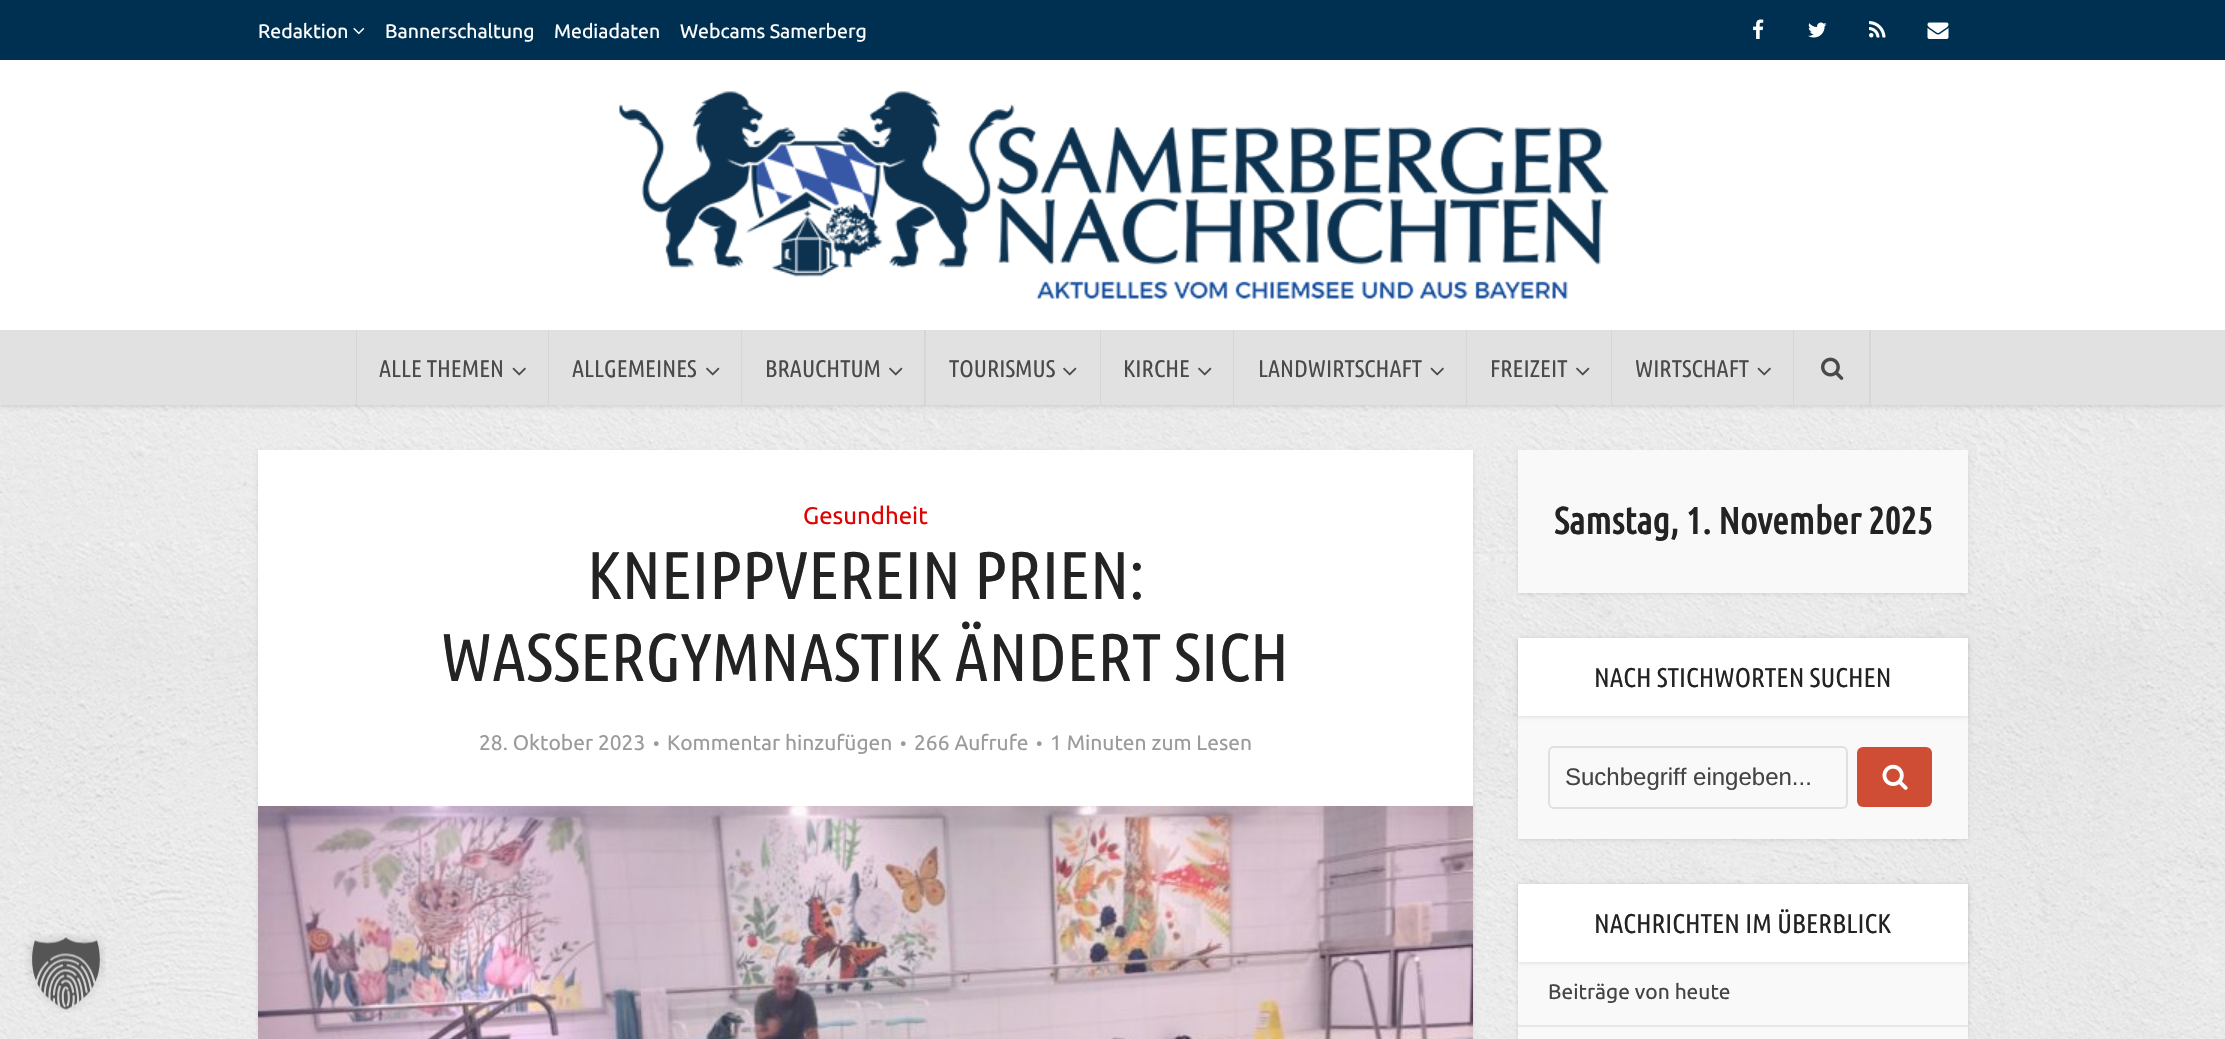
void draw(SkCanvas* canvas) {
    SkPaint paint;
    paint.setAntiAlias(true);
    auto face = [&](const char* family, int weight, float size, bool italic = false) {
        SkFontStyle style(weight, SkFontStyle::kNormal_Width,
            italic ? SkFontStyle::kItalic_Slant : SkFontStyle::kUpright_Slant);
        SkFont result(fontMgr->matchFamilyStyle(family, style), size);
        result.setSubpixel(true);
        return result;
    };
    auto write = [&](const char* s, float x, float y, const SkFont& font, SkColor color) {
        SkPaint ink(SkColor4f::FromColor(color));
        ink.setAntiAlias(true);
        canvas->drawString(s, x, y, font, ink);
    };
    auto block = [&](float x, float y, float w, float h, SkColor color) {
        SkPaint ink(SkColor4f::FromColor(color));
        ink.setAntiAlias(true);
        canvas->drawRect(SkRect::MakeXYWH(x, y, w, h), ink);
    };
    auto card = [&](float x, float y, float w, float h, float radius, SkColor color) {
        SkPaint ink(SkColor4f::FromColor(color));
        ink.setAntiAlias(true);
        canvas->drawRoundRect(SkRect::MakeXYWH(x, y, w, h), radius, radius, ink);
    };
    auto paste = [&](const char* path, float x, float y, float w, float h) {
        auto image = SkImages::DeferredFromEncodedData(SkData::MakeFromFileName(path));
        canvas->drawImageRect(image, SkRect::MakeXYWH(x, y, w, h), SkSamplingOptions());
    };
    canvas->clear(SK_ColorWHITE);
    paste("pic1.png", 0, 405, 2225, 634);
    paste("pic2.png", 25, 933, 81, 80);
    paint.setColor(SkColorSetARGB(26, 0, 0, 0));
    paint.setMaskFilter(SkMaskFilter::MakeBlur(kNormal_SkBlurStyle, 2));
    canvas->drawRect(SkRect::MakeXYWH(0, 2, 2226, 405), paint);
    paint.setMaskFilter(nullptr);
    block(0, 60, 2225, 270, SK_ColorWHITE);
    block(0, 0, 2225, 60, SkColorSetRGB(0, 48, 81));
    auto kFont1 = face("Ubuntu", 400, 19.5f);
    write("Redaktion", 258, 38, kFont1, SK_ColorWHITE);
    paste("pic3.png", 353, 27, 12, 8);
    write("Bannerschaltung", 385, 38, kFont1, SK_ColorWHITE);
    write("Mediadaten", 554, 38, kFont1, SK_ColorWHITE);
    write("Webcams Samerberg", 680, 38, kFont1, SK_ColorWHITE);
    paste("pic4.png", 1753, 19, 11, 20);
    paste("pic5.png", 1808, 22, 19, 16);
    paste("pic6.png", 1869, 21, 17, 17);
    paste("pic7.png", 1927, 22, 22, 17);
    paste("pic8.png", 619, 91, 990, 208);
    block(0, 330, 2225, 75, SkColorSetRGB(225, 225, 225));
    block(356, 330, 1, 75, SkColorSetRGB(214, 214, 214));
    auto kFont2 = face("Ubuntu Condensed", 400, 24);
    write("ALLE THEMEN", 379, 377, kFont2, SkColorSetRGB(74, 74, 74));
    paste("pic9.png", 512, 367, 14, 9);
    block(548, 330, 1, 75, SkColorSetRGB(214, 214, 214));
    write("ALLGEMEINES", 572, 377, kFont2, SkColorSetRGB(74, 74, 74));
    paste("pic10.png", 706, 367, 14, 9);
    block(741, 330, 1, 75, SkColorSetRGB(214, 214, 214));
    write("BRAUCHTUM", 765, 377, kFont2, SkColorSetRGB(74, 74, 74));
    paste("pic10.png", 889, 367, 14, 9);
    block(924, 330, 2, 75, SkColorSetRGB(214, 214, 214));
    write("TOURISMUS", 949, 377, kFont2, SkColorSetRGB(74, 74, 74));
    paste("pic10.png", 1063, 367, 14, 9);
    block(1100, 330, 1, 75, SkColorSetRGB(214, 214, 214));
    write("KIRCHE", 1123, 377, kFont2, SkColorSetRGB(74, 74, 74));
    paste("pic10.png", 1198, 367, 14, 9);
    block(1233, 330, 1, 75, SkColorSetRGB(214, 214, 214));
    write("LANDWIRTSCHAFT", 1258, 377, kFont2, SkColorSetRGB(74, 74, 74));
    paste("pic9.png", 1430, 367, 14, 9);
    block(1466, 330, 1, 75, SkColorSetRGB(214, 214, 214));
    write("FREIZEIT", 1490, 377, kFont2, SkColorSetRGB(74, 74, 74));
    paste("pic10.png", 1576, 367, 14, 9);
    block(1611, 330, 1, 75, SkColorSetRGB(214, 214, 214));
    write("WIRTSCHAFT", 1635, 377, kFont2, SkColorSetRGB(74, 74, 74));
    paste("pic9.png", 1757, 367, 14, 9);
    block(1869, 330, 2, 75, SkColorSetRGB(214, 214, 214));
    block(1793, 330, 1, 75, SkColorSetRGB(214, 214, 214));
    paste("pic11.png", 1821, 357, 23, 23);
    paint.setMaskFilter(SkMaskFilter::MakeBlur(kNormal_SkBlurStyle, 2));
    canvas->drawRect(SkRect::MakeXYWH(258, 452, 1215, 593), paint);
    paint.setMaskFilter(nullptr);
    block(258, 450, 1215, 356, SK_ColorWHITE);
    auto kFont3 = face("Ubuntu", 400, 24);
    write("Gesundheit", 803, 524, kFont3, SkColorSetRGB(221, 4, 4));
    auto kFont4 = face("Ubuntu Condensed", 400, 67.5f);
    write("KNEIPPVEREIN PRIEN:", 587, 599, kFont4, SkColorSetRGB(35, 35, 35));
    write("WASSERGYMNASTIK ÄNDERT SICH", 441, 681, kFont4, SkColorSetRGB(35, 35, 35));
    auto kFont5 = face("Ubuntu", 400, 21);
    write("28. Oktober 2023", 479, 750, kFont5, SkColorSetRGB(155, 155, 155));
    auto kFont6 = face("Ubuntu", 400, 18);
    write("•", 653, 750, kFont6, SkColorSetRGB(155, 155, 155));
    write("Kommentar hinzufügen", 667, 750, kFont5, SkColorSetRGB(155, 155, 155));
    write("•", 900, 750, kFont6, SkColorSetRGB(155, 155, 155));
    write("266 Aufrufe", 914, 750, kFont5, SkColorSetRGB(155, 155, 155));
    write("•", 1036, 750, kFont6, SkColorSetRGB(155, 155, 155));
    write("1 Minuten zum Lesen", 1050, 750, kFont5, SkColorSetRGB(155, 155, 155));
    paste("pic12.png", 258, 806, 1215, 233);
    paint.setMaskFilter(SkMaskFilter::MakeBlur(kNormal_SkBlurStyle, 2));
    canvas->drawRect(SkRect::MakeXYWH(1518, 452, 450, 142), paint);
    paint.setMaskFilter(nullptr);
    block(1518, 450, 450, 143, SkColorSetRGB(249, 249, 249));
    auto kFont7 = face("Ubuntu Condensed", 700, 37.5f);
    write("Samstag, 1. November 2025", 1554, 534, kFont7, SkColorSetRGB(35, 35, 35));
    paint.setMaskFilter(SkMaskFilter::MakeBlur(kNormal_SkBlurStyle, 2));
    canvas->drawRect(SkRect::MakeXYWH(1518, 639, 450, 201), paint);
    paint.setMaskFilter(nullptr);
    block(1518, 716, 450, 123, SkColorSetRGB(249, 249, 249));
    paint.setMaskFilter(SkMaskFilter::MakeBlur(kNormal_SkBlurStyle, 2));
    canvas->drawRect(SkRect::MakeXYWH(1518, 639, 450, 78), paint);
    paint.setMaskFilter(nullptr);
    block(1518, 638, 450, 78, SK_ColorWHITE);
    auto kFont8 = face("Ubuntu Condensed", 400, 27);
    write("NACH STICHWORTEN SUCHEN", 1594, 687, kFont8, SkColorSetRGB(35, 35, 35));
    paint.setStyle(SkPaint::kStroke_Style);
    paint.setStrokeWidth(2);
    paint.setColor(SkColorSetRGB(224, 224, 224));
    canvas->drawRoundRect(SkRect::MakeXYWH(1549, 747, 298, 61), 5, 5, paint);
    auto kFont9 = face("Liberation Sans", 400, 24);
    write("Suchbegriff eingeben...", 1565, 785, kFont9, SkColorSetRGB(68, 68, 68));
    card(1857, 747, 75, 60, 6, SkColorSetRGB(207, 77, 53));
    paste("pic13.png", 1882, 764, 26, 26);
    paint.setStyle(SkPaint::kFill_Style);
    paint.setColor(SkColorSetARGB(26, 0, 0, 0));
    paint.setMaskFilter(SkMaskFilter::MakeBlur(kNormal_SkBlurStyle, 2));
    canvas->drawRect(SkRect::MakeXYWH(1518, 885, 450, 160), paint);
    paint.setMaskFilter(nullptr);
    block(1518, 962, 450, 77, SkColorSetRGB(249, 249, 249));
    paint.setMaskFilter(SkMaskFilter::MakeBlur(kNormal_SkBlurStyle, 2));
    canvas->drawRect(SkRect::MakeXYWH(1518, 885, 450, 78), paint);
    paint.setMaskFilter(nullptr);
    block(1518, 884, 450, 78, SK_ColorWHITE);
    write("NACHRICHTEN IM ÜBERBLICK", 1594, 933, kFont8, SkColorSetRGB(35, 35, 35));
    block(1518, 1025, 450, 2, SkColorSetRGB(232, 232, 232));
    write("Beiträge von heute", 1548, 999, kFont5, SkColorSetRGB(68, 68, 68));
}
